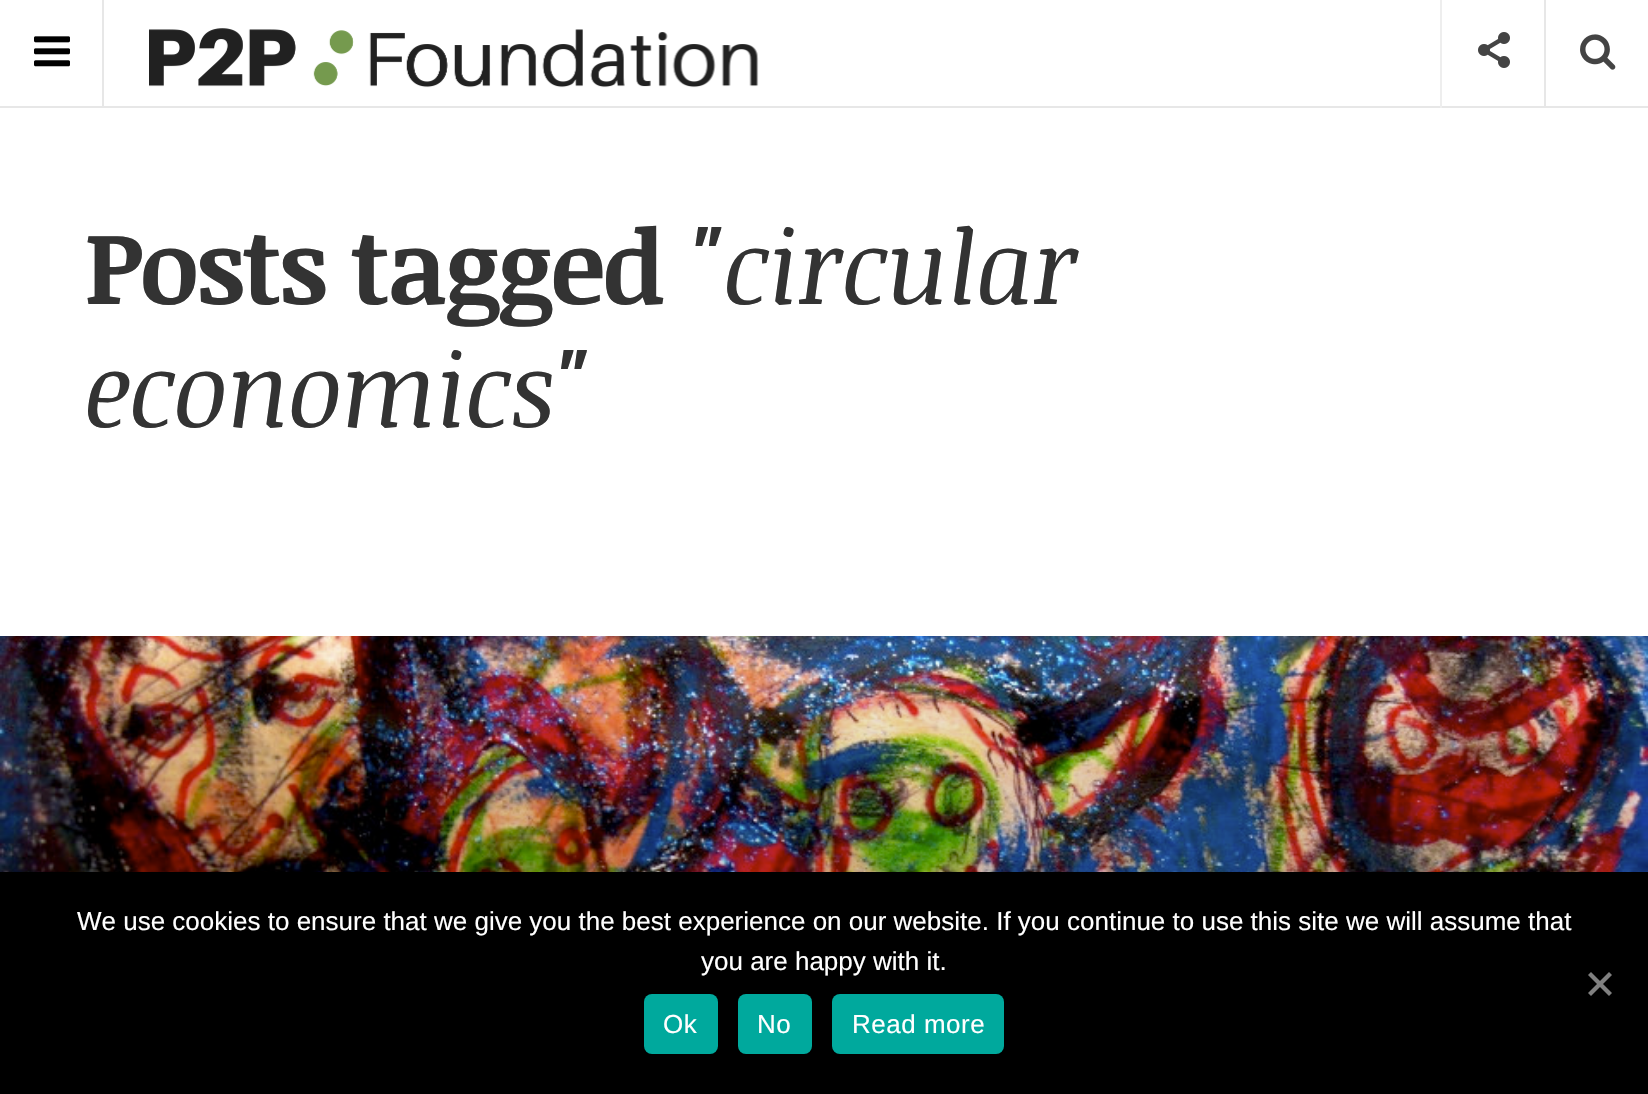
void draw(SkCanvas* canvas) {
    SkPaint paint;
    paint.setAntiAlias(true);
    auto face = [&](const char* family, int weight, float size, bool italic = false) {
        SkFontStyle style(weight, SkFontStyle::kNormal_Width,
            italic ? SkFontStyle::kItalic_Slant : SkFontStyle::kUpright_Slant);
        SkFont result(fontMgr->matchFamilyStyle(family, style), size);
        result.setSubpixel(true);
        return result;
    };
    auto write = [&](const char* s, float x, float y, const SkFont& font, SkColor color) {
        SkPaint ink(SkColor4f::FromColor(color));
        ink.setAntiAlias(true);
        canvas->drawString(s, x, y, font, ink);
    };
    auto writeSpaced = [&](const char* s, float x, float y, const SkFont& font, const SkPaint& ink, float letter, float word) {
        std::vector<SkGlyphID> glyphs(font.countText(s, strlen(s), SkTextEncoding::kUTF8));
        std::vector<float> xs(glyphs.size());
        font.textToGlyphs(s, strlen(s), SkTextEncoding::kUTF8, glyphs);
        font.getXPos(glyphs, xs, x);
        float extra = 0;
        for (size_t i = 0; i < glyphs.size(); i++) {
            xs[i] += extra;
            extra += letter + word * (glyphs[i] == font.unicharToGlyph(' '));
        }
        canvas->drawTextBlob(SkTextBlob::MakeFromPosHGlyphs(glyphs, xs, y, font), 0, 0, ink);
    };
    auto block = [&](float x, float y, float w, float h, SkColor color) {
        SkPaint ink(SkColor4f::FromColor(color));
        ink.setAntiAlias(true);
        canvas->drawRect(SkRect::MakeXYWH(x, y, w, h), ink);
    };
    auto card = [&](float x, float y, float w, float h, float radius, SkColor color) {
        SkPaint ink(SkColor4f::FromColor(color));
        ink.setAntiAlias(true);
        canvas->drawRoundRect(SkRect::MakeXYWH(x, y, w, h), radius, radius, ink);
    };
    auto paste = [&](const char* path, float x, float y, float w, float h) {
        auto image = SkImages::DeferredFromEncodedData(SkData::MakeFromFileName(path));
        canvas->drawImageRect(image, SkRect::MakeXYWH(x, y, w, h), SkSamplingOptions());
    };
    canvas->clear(SK_ColorWHITE);
    block(0, 106, 1648, 2, SkColorSetRGB(231, 231, 231));
    block(102, 0, 2, 108, SkColorSetRGB(231, 231, 231));
    paste("pic1.png", 34, 36, 36, 31);
    paste("pic2.png", 149, 28, 610, 60);
    block(1440, 0, 2, 108, SkColorSetRGB(238, 238, 238));
    paste("pic3.png", 1478, 32, 32, 36);
    block(1544, 0, 2, 108, SkColorSetRGB(231, 231, 231));
    paste("pic4.png", 1580, 34, 36, 36);
    auto kFont1 = face("Noticia Text", 700, 102.5f);
    paint.setColor(SkColorSetRGB(51, 51, 51));
    writeSpaced("Posts tagged", 84, 304, kFont1, paint, -2, 0);
    auto kFont2 = face("Noticia Text", 400, 102.5f, true);
    writeSpaced("\"circular", 688, 304, kFont2, paint, -2, 0);
    writeSpaced("economics\"", 84, 427, kFont2, paint, -2, 0);
    paste("pic5.png", 0, 636, 1648, 236);
    block(0, 872, 1648, 222, SK_ColorBLACK);
    auto kFont3 = face("Liberation Sans", 400, 26);
    write("We use cookies to ensure that we give you the best experience on our website. If you continue to use this site we will assume that", 77, 930, kFont3, SK_ColorWHITE);
    write("you are happy with it.", 701, 970, kFont3, SK_ColorWHITE);
    paint.setColor(SkColorSetRGB(128, 128, 128));
    canvas->drawPath(SkPathBuilder().moveTo(1609, 972).lineTo(1612, 975).lineTo(1591, 996).lineTo(1588, 993).close().detach(), paint);
    canvas->drawPath(SkPathBuilder().moveTo(1588, 975).lineTo(1591, 972).lineTo(1612, 993).lineTo(1609, 996).close().detach(), paint);
    card(644, 994, 74, 60, 8, SkColorSetRGB(0, 169, 157));
    paint.setColor(SK_ColorWHITE);
    writeSpaced("Ok", 663, 1033, kFont3, paint, 0.5f, 0);
    card(738, 994, 74, 60, 8, SkColorSetRGB(0, 169, 157));
    writeSpaced("No", 757, 1033, kFont3, paint, 0.5f, 0);
    card(832, 994, 172, 60, 8, SkColorSetRGB(0, 169, 157));
    writeSpaced("Read more", 852, 1033, kFont3, paint, 0.5f, 0);
}
